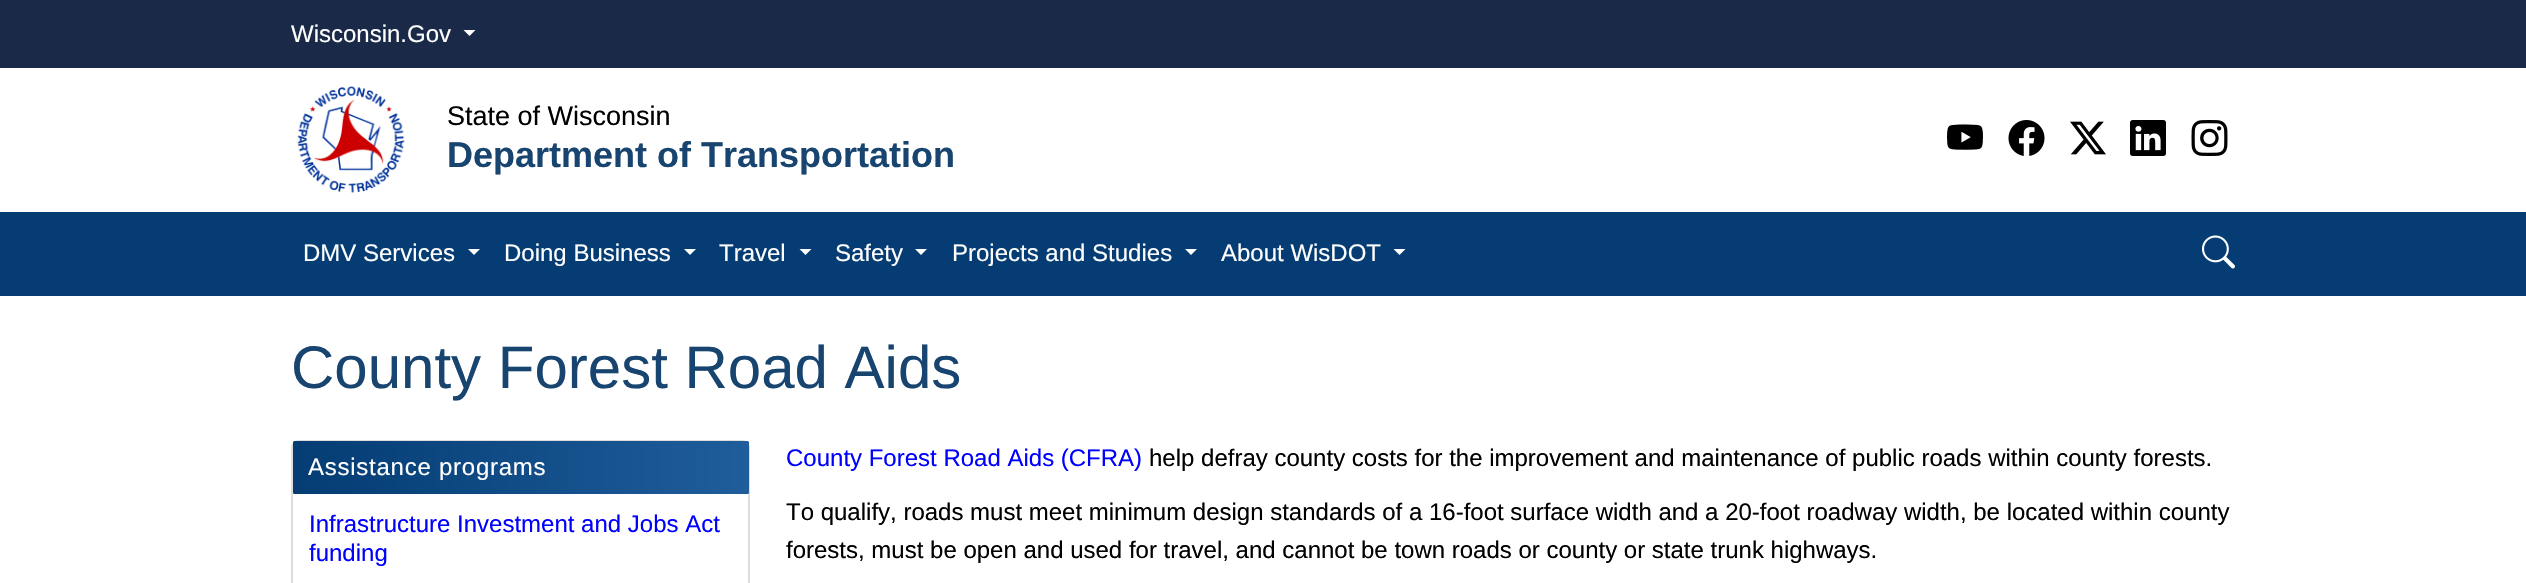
void draw(SkCanvas* canvas) {
    SkPaint paint;
    paint.setAntiAlias(true);
    auto face = [&](const char* family, int weight, float size, bool italic = false) {
        SkFontStyle style(weight, SkFontStyle::kNormal_Width,
            italic ? SkFontStyle::kItalic_Slant : SkFontStyle::kUpright_Slant);
        SkFont result(fontMgr->matchFamilyStyle(family, style), size);
        result.setSubpixel(true);
        return result;
    };
    auto write = [&](const char* s, float x, float y, const SkFont& font, SkColor color) {
        SkPaint ink(SkColor4f::FromColor(color));
        ink.setAntiAlias(true);
        canvas->drawString(s, x, y, font, ink);
    };
    auto writeSpaced = [&](const char* s, float x, float y, const SkFont& font, const SkPaint& ink, float letter, float word) {
        std::vector<SkGlyphID> glyphs(font.countText(s, strlen(s), SkTextEncoding::kUTF8));
        std::vector<float> xs(glyphs.size());
        font.textToGlyphs(s, strlen(s), SkTextEncoding::kUTF8, glyphs);
        font.getXPos(glyphs, xs, x);
        float extra = 0;
        for (size_t i = 0; i < glyphs.size(); i++) {
            xs[i] += extra;
            extra += letter + word * (glyphs[i] == font.unicharToGlyph(' '));
        }
        canvas->drawTextBlob(SkTextBlob::MakeFromPosHGlyphs(glyphs, xs, y, font), 0, 0, ink);
    };
    auto block = [&](float x, float y, float w, float h, SkColor color) {
        SkPaint ink(SkColor4f::FromColor(color));
        ink.setAntiAlias(true);
        canvas->drawRect(SkRect::MakeXYWH(x, y, w, h), ink);
    };
    auto paste = [&](const char* path, float x, float y, float w, float h) {
        auto image = SkImages::DeferredFromEncodedData(SkData::MakeFromFileName(path));
        canvas->drawImageRect(image, SkRect::MakeXYWH(x, y, w, h), SkSamplingOptions());
    };
    canvas->clear(SK_ColorWHITE);
    block(0, 0, 2526, 68, SkColorSetRGB(25, 41, 71));
    auto kFont1 = face("Liberation Sans", 400, 24);
    write("Wisconsin.Gov", 291, 42, kFont1, SK_ColorWHITE);
    paint.setColor(SK_ColorWHITE);
    canvas->drawPath(SkPathBuilder().moveTo(463.5f, 30).lineTo(475.5f, 30).lineTo(469.5f, 36).close().detach(), paint);
    paste("pic1.png", 297, 86, 108, 107);
    auto kFont2 = face("Liberation Sans", 400, 27);
    write("State of Wisconsin", 447, 125, kFont2, SK_ColorBLACK);
    auto kFont3 = face("Liberation Sans", 700, 36);
    write("Department of Transportation", 447, 167, kFont3, SkColorSetRGB(24, 68, 112));
    paste("pic2.png", 1947, 124, 36, 26);
    paste("pic3.png", 2008, 120, 37, 36);
    paste("pic4.png", 2070, 121, 36, 34);
    paste("pic5.png", 2130, 120, 36, 36);
    paste("pic6.png", 2191, 120, 37, 36);
    block(0, 212, 2526, 84, SkColorSetRGB(4, 60, 115));
    write("DMV Services", 303, 261, kFont1, SK_ColorWHITE);
    canvas->drawPath(SkPathBuilder().moveTo(468, 249).lineTo(480, 249).lineTo(474, 255).close().detach(), paint);
    write("Doing Business", 504, 261, kFont1, SK_ColorWHITE);
    canvas->drawPath(SkPathBuilder().moveTo(684, 249).lineTo(696, 249).lineTo(690, 255).close().detach(), paint);
    write("Travel", 719, 261, kFont1, SK_ColorWHITE);
    canvas->drawPath(SkPathBuilder().moveTo(799.5f, 249).lineTo(811.5f, 249).lineTo(805.5f, 255).close().detach(), paint);
    write("Safety", 835, 261, kFont1, SK_ColorWHITE);
    canvas->drawPath(SkPathBuilder().moveTo(915, 249).lineTo(927, 249).lineTo(921, 255).close().detach(), paint);
    write("Projects and Studies", 952, 261, kFont1, SK_ColorWHITE);
    canvas->drawPath(SkPathBuilder().moveTo(1185, 249).lineTo(1197, 249).lineTo(1191, 255).close().detach(), paint);
    write("About WisDOT", 1221, 261, kFont1, SK_ColorWHITE);
    canvas->drawPath(SkPathBuilder().moveTo(1393.5f, 249).lineTo(1405.5f, 249).lineTo(1399.5f, 255).close().detach(), paint);
    paste("pic7.png", 2202, 235, 33, 34);
    auto kFont4 = face("Liberation Sans", 400, 60);
    write("County Forest Road Aids", 291, 388, kFont4, SkColorSetRGB(24, 68, 112));
    paint.setStyle(SkPaint::kStroke_Style);
    paint.setStrokeWidth(2);
    paint.setColor(SkColorSetRGB(221, 221, 221));
    canvas->drawRoundRect(SkRect::MakeXYWH(292, 441, 457, 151), 7, 7, paint);
    paint.setStyle(SkPaint::kFill_Style);
    {
        const SkColor colors[] = {SkColorSetRGB(4, 60, 115), SkColorSetRGB(31, 93, 155)};
        const float stops[] = {0, 1};
        const SkPoint ends[] = {{293, 467}, {749, 467}};
        paint.setShader(SkGradientShader::MakeLinear(ends, colors, stops, 2, SkTileMode::kClamp));
        paint.setAlpha(255);
    }
    canvas->drawRoundRect(SkRect::MakeXYWH(293, 441, 456, 53), 1.5f, 1.5f, paint);
    paint.setShader(nullptr);
    paint.setColor(SK_ColorWHITE);
    writeSpaced("Assistance programs", 308, 475, kFont1, paint, 0.75f, 0);
    write("Infrastructure Investment and Jobs Act", 309, 532, kFont1, SkColorSetRGB(0, 0, 255));
    write("funding", 309, 561, kFont1, SkColorSetRGB(0, 0, 255));
    write("County Forest Road Aids (CFRA)", 786, 466, kFont1, SkColorSetRGB(0, 0, 255));
    write("help defray county costs for the improvement and maintenance of public roads within county forests.", 1149, 466, kFont1, SK_ColorBLACK);
    write("To qualify, roads must meet minimum design standards of a 16-foot surface width and a 20-foot roadway width, be located within county", 786, 520, kFont1, SK_ColorBLACK);
    write("forests, must be open and used for travel, and cannot be town roads or county or state trunk highways.", 786, 558, kFont1, SK_ColorBLACK);
}
